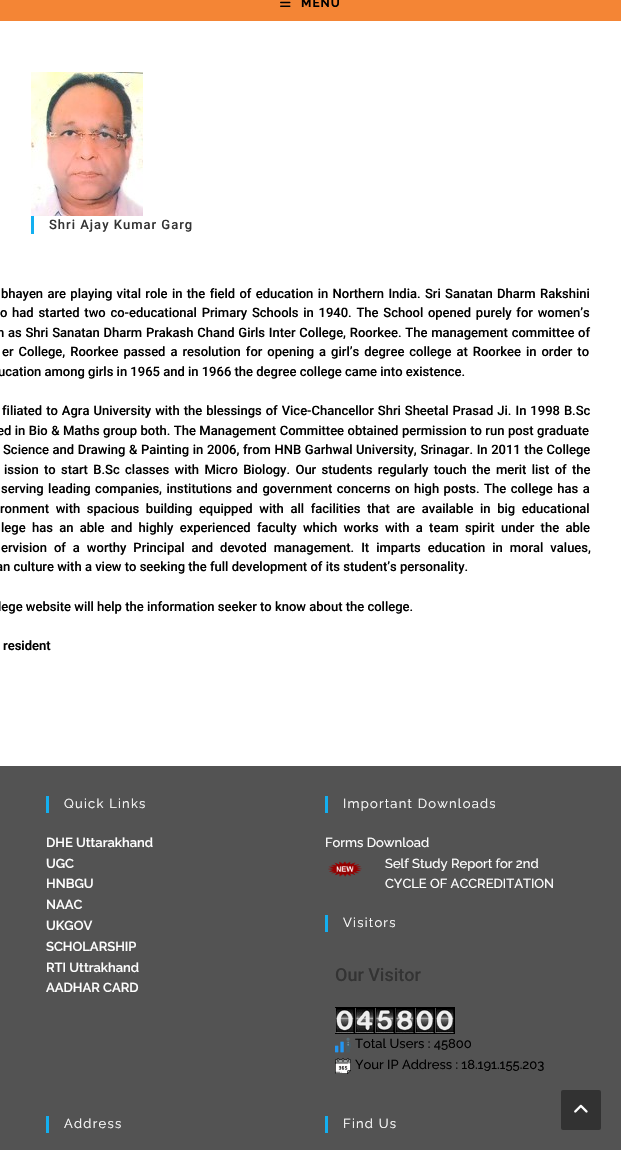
void draw(SkCanvas* canvas) {
    SkPaint paint;
    paint.setAntiAlias(true);
    auto face = [&](const char* family, int weight, float size, bool italic = false) {
        SkFontStyle style(weight, SkFontStyle::kNormal_Width,
            italic ? SkFontStyle::kItalic_Slant : SkFontStyle::kUpright_Slant);
        SkFont result(fontMgr->matchFamilyStyle(family, style), size);
        result.setSubpixel(true);
        return result;
    };
    auto write = [&](const char* s, float x, float y, const SkFont& font, SkColor color) {
        SkPaint ink(SkColor4f::FromColor(color));
        ink.setAntiAlias(true);
        canvas->drawString(s, x, y, font, ink);
    };
    auto writeSpaced = [&](const char* s, float x, float y, const SkFont& font, const SkPaint& ink, float letter, float word) {
        std::vector<SkGlyphID> glyphs(font.countText(s, strlen(s), SkTextEncoding::kUTF8));
        std::vector<float> xs(glyphs.size());
        font.textToGlyphs(s, strlen(s), SkTextEncoding::kUTF8, glyphs);
        font.getXPos(glyphs, xs, x);
        float extra = 0;
        for (size_t i = 0; i < glyphs.size(); i++) {
            xs[i] += extra;
            extra += letter + word * (glyphs[i] == font.unicharToGlyph(' '));
        }
        canvas->drawTextBlob(SkTextBlob::MakeFromPosHGlyphs(glyphs, xs, y, font), 0, 0, ink);
    };
    auto block = [&](float x, float y, float w, float h, SkColor color) {
        SkPaint ink(SkColor4f::FromColor(color));
        ink.setAntiAlias(true);
        canvas->drawRect(SkRect::MakeXYWH(x, y, w, h), ink);
    };
    auto card = [&](float x, float y, float w, float h, float radius, SkColor color) {
        SkPaint ink(SkColor4f::FromColor(color));
        ink.setAntiAlias(true);
        canvas->drawRoundRect(SkRect::MakeXYWH(x, y, w, h), radius, radius, ink);
    };
    auto paste = [&](const char* path, float x, float y, float w, float h) {
        auto image = SkImages::DeferredFromEncodedData(SkData::MakeFromFileName(path));
        canvas->drawImageRect(image, SkRect::MakeXYWH(x, y, w, h), SkSamplingOptions());
    };
    canvas->clear(SK_ColorWHITE);
    block(0, 0, 621, 21, SkColorSetRGB(244, 133, 53));
    paste("pic1.png", 280, 1, 11, 6);
    auto kFont1 = face("Raleway", 700, 12);
    paint.setColor(SK_ColorBLACK);
    writeSpaced("MENU", 301, 7, kFont1, paint, 1, 0);
    paste("pic2.png", 31, 72, 112, 144);
    block(31, 216, 3, 18, SkColorSetRGB(19, 175, 240));
    auto kFont2 = face("Roboto", 500, 13);
    paint.setColor(SkColorSetRGB(51, 51, 51));
    writeSpaced("Shri Ajay Kumar Garg", 49, 229, kFont2, paint, 1, 0);
    paint.setColor(SK_ColorBLACK);
    writeSpaced("bhayen are playing vital role in the field of education in Northern India. Sri Sanatan Dharm Rakshini", 1, 298, kFont2, paint, 0, 1.1f);
    writeSpaced("o had started two co-educational Primary Schools in 1940. The School opened purely for women’s", 0, 317, kFont2, paint, 0, 1.5f);
    writeSpaced("n as Shri Sanatan Dharm Prakash Chand Girls Inter College, Roorkee. The management committee of", -3, 337, kFont2, paint, 0, 0.5f);
    writeSpaced("er College, Roorkee passed a resolution for opening a girl’s degree college at Roorkee in order to", 2, 356, kFont2, paint, 0, 1.75f);
    write("ucation among girls in 1965 and in 1966 the degree college came into existence.", -2, 376, kFont2, SK_ColorBLACK);
    writeSpaced("filiated to Agra University with the blessings of Vice-Chancellor Shri Sheetal Prasad Ji. In 1998 B.Sc", 2, 415, kFont2, paint, 0, 0.75f);
    writeSpaced("ed in Bio & Maths group both. The Management Committee obtained permission to run post graduate", -3, 435, kFont2, paint, 0, 0.25f);
    writeSpaced("Science and Drawing & Painting in 2006, from HNB Garhwal University, Srinagar. In 2011 the College", 3, 454, kFont2, paint, 0, 0.4f);
    writeSpaced("ission to start B.Sc classes with Micro Biology. Our students regularly touch the merit list of the", 4, 474, kFont2, paint, 0, 2.1f);
    writeSpaced("serving leading companies, institutions and government concerns on high posts. The college has a", 1, 493, kFont2, paint, 0, 1.25f);
    writeSpaced("ronment with spacious building equipped with all facilities that are available in big educational", 0, 513, kFont2, paint, 0, 3.4f);
    writeSpaced("lege has an able and highly experienced faculty which works with a team spirit under the able", 1, 532, kFont2, paint, 0, 3.1f);
    writeSpaced("ervision of a worthy Principal and devoted management. It imparts education in moral values,", 1, 552, kFont2, paint, 0, 3.75f);
    write("an culture with a view to seeking the full development of its student’s personality.", -4, 571, kFont2, SK_ColorBLACK);
    write("lege website will help the information seeker to know about the college.", -2, 611, kFont2, SK_ColorBLACK);
    auto kFont3 = face("Roboto", 600, 13);
    write("resident", 3, 650, kFont3, SK_ColorBLACK);
    block(0, 766, 621, 384, SkColorSetRGB(83, 83, 83));
    block(46, 796, 3, 17, SkColorSetRGB(19, 175, 240));
    auto kFont4 = face("Raleway", 400, 13);
    paint.setColor(SK_ColorWHITE);
    writeSpaced("Quick Links", 64, 808, kFont4, paint, 1.25f, 0);
    auto kFont5 = face("Raleway", 600, 13);
    write("DHE Uttarakhand", 46, 847, kFont5, SK_ColorWHITE);
    write("UGC", 46, 868, kFont5, SK_ColorWHITE);
    write("HNBGU", 46, 888, kFont5, SK_ColorWHITE);
    write("NAAC", 46, 909, kFont5, SK_ColorWHITE);
    write("UKGOV", 46, 930, kFont5, SK_ColorWHITE);
    write("SCHOLARSHIP", 46, 951, kFont5, SK_ColorWHITE);
    write("RTI Uttrakhand", 46, 972, kFont5, SK_ColorWHITE);
    write("AADHAR CARD", 46, 992, kFont5, SK_ColorWHITE);
    block(325, 796, 3, 17, SkColorSetRGB(19, 175, 240));
    writeSpaced("Important Downloads", 343, 808, kFont4, paint, 1.25f, 0);
    auto kFont6 = face("Raleway", 500, 13);
    write("Forms Download", 325, 847, kFont6, SK_ColorWHITE);
    paste("pic3.png", 328, 861, 34, 16);
    write("Self Study Report for 2nd", 385, 868, kFont6, SK_ColorWHITE);
    write("CYCLE OF ACCREDITATION", 385, 888, kFont6, SK_ColorWHITE);
    block(325, 915, 3, 17, SkColorSetRGB(19, 175, 240));
    writeSpaced("Visitors", 343, 927, kFont4, paint, 1.25f, 0);
    auto kFont7 = face("Roboto", 500, 18);
    write("Our Visitor", 335, 981, kFont7, SkColorSetRGB(51, 51, 51));
    paste("pic4.png", 335, 1007, 20, 27);
    paste("pic5.png", 355, 1007, 20, 27);
    paste("pic6.png", 375, 1007, 20, 27);
    paste("pic7.png", 395, 1007, 20, 27);
    paste("pic4.png", 415, 1007, 20, 27);
    paste("pic4.png", 435, 1007, 20, 27);
    paste("pic8.png", 335, 1037, 16, 16);
    write("Total Users : 45800", 355, 1048, kFont6, SK_ColorBLACK);
    paste("pic9.png", 335, 1058, 16, 16);
    write("Your IP Address : 18.191.155.203", 355, 1069, kFont6, SK_ColorBLACK);
    block(46, 1116, 3, 17, SkColorSetRGB(19, 175, 240));
    writeSpaced("Address", 64, 1128, kFont4, paint, 1.25f, 0);
    block(325, 1116, 3, 17, SkColorSetRGB(19, 175, 240));
    writeSpaced("Find Us", 343, 1128, kFont4, paint, 1.25f, 0);
    card(561, 1090, 40, 40, 2, SkColorSetRGB(50, 50, 50));
    paste("pic10.png", 574, 1104, 14, 9);
}
